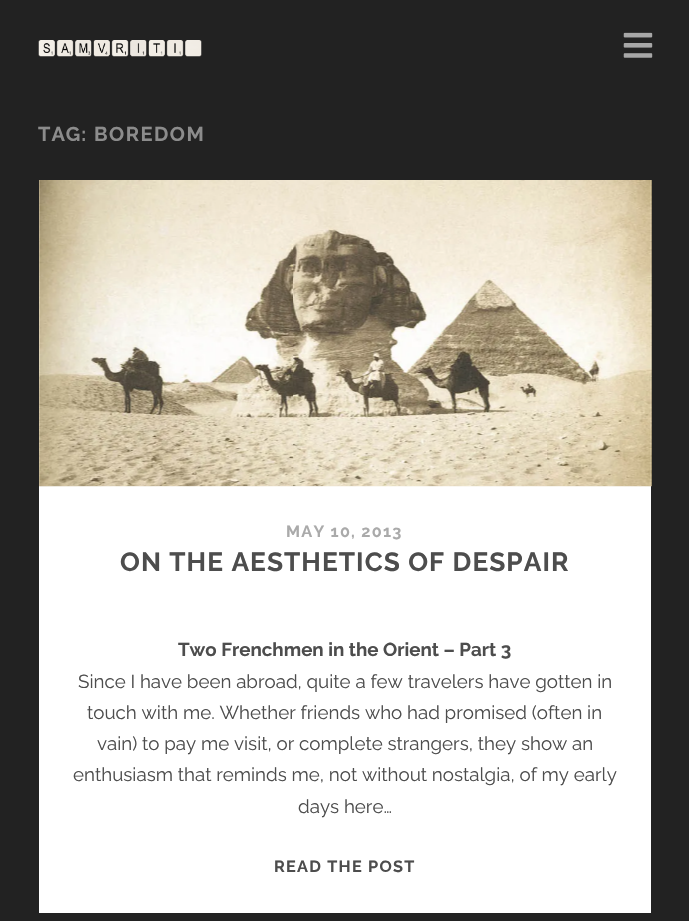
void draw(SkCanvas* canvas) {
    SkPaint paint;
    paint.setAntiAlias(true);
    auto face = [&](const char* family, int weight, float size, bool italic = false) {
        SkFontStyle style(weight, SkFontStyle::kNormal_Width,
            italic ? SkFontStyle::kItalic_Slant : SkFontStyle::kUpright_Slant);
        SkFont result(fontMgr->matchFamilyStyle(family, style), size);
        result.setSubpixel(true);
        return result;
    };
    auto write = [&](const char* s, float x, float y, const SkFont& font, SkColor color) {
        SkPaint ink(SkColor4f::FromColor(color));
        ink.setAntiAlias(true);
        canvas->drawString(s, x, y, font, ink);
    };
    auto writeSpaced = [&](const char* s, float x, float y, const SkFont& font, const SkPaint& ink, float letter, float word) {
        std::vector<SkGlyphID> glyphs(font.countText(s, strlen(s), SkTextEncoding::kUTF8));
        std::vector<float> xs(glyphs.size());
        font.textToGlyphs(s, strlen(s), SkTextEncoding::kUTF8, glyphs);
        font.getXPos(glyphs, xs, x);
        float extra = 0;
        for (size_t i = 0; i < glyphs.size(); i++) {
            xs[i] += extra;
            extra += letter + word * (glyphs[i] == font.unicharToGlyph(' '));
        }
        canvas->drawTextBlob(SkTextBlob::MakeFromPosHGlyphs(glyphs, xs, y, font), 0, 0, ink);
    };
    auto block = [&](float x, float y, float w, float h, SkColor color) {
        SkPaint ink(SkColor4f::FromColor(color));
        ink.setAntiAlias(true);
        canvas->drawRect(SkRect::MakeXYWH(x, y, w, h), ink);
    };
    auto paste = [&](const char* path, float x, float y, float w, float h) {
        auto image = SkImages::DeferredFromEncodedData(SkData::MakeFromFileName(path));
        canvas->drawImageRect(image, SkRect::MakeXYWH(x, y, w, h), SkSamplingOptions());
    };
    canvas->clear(SkColorSetRGB(34, 34, 34));
    paste("pic1.png", 38, 40, 164, 17);
    paste("pic2.png", 623, 32, 30, 26);
    auto kFont1 = face("Raleway", 700, 20);
    paint.setColor(SkColorSetRGB(140, 140, 140));
    writeSpaced("TAG:", 38, 141, kFont1, paint, 1, 0);
    writeSpaced("BOREDOM", 94, 141, kFont1, paint, 1.5f, 0);
    block(39, 180, 612, 733, SK_ColorWHITE);
    paste("pic3.png", 39, 180, 613, 307);
    auto kFont2 = face("Raleway", 700, 16.25f);
    paint.setColor(SkColorSetRGB(170, 170, 170));
    writeSpaced("MAY 10, 2013", 286, 537, kFont2, paint, 1.25f, 0);
    auto kFont3 = face("Raleway", 700, 26.25f);
    paint.setColor(SkColorSetRGB(77, 77, 77));
    writeSpaced("ON THE AESTHETICS OF DESPAIR", 120, 571, kFont3, paint, 1.05f, 0);
    auto kFont4 = face("Raleway", 700, 18.75f);
    write("Two Frenchmen in the Orient – Part 3", 178, 656, kFont4, SkColorSetRGB(77, 77, 77));
    auto kFont5 = face("Raleway", 400, 18.75f);
    write("Since I have been abroad, quite a few travelers have gotten in", 78, 688, kFont5, SkColorSetRGB(77, 77, 77));
    write("touch with me. Whether friends who had promised (often in", 87, 719, kFont5, SkColorSetRGB(77, 77, 77));
    write("vain) to pay me visit, or complete strangers, they show an", 97, 750, kFont5, SkColorSetRGB(77, 77, 77));
    write("enthusiasm that reminds me, not without nostalgia, of my early", 73, 781, kFont5, SkColorSetRGB(77, 77, 77));
    write("days here…", 298, 813, kFont5, SkColorSetRGB(77, 77, 77));
    writeSpaced("READ THE POST", 274, 872, kFont2, paint, 1.25f, 0);
}
